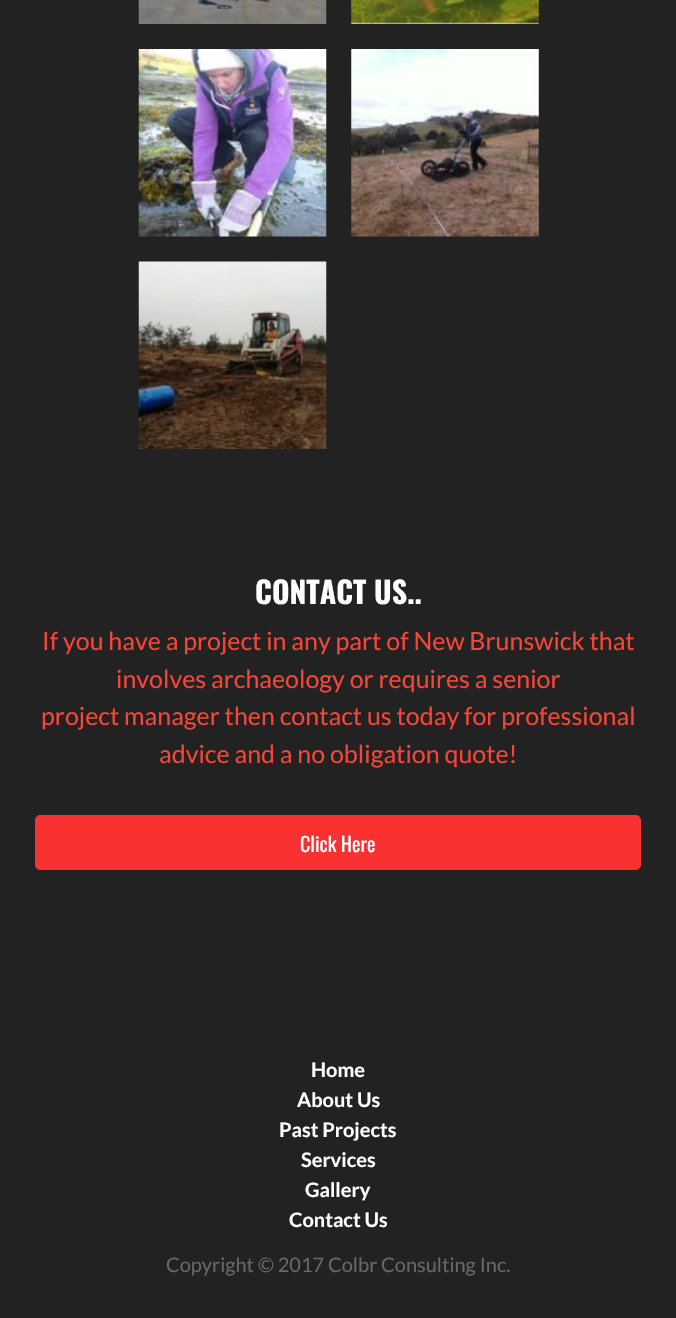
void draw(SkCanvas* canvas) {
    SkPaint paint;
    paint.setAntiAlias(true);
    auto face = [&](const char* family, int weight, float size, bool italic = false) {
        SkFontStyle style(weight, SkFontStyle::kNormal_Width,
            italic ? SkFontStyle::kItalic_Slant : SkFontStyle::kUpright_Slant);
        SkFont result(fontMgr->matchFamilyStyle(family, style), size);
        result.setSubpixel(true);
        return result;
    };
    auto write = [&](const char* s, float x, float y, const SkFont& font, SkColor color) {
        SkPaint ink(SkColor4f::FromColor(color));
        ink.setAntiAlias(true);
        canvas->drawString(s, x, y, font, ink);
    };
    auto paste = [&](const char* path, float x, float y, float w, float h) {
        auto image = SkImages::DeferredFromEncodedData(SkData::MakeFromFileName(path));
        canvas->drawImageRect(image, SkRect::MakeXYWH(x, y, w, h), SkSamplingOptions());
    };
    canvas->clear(SkColorSetRGB(34, 34, 34));
    paste("pic1.png", 138, 0, 189, 24);
    paste("pic2.png", 351, 0, 188, 24);
    paste("pic3.png", 138, 49, 189, 188);
    paste("pic4.png", 351, 49, 188, 188);
    paste("pic5.png", 138, 261, 189, 188);
    auto kFont1 = face("Oswald", 700, 30);
    write("CONTACT US..", 255, 604, kFont1, SK_ColorWHITE);
    auto kFont2 = face("Lato", 400, 25);
    write("If you have a project in any part of New Brunswick that", 42, 650, kFont2, SkColorSetRGB(247, 69, 56));
    write("involves archaeology or requires a senior", 116, 688, kFont2, SkColorSetRGB(247, 69, 56));
    write("project manager then contact us today for professional", 41, 725, kFont2, SkColorSetRGB(247, 69, 56));
    write("advice and a no obligation quote!", 159, 763, kFont2, SkColorSetRGB(247, 69, 56));
    paint.setColor(SkColorSetRGB(249, 49, 49));
    canvas->drawRoundRect(SkRect::MakeXYWH(35.5f, 815.5f, 605, 54), 4.5f, 4.5f, paint);
    paint.setStyle(SkPaint::kStroke_Style);
    paint.setStrokeWidth(1);
    canvas->drawRoundRect(SkRect::MakeXYWH(35.5f, 815.5f, 605, 54), 4.5f, 4.5f, paint);
    auto kFont3 = face("Oswald", 400, 20);
    write("Click Here", 300, 852, kFont3, SK_ColorWHITE);
    auto kFont4 = face("Lato", 700, 20);
    write("Home", 311, 1077, kFont4, SK_ColorWHITE);
    write("About Us", 297, 1107, kFont4, SK_ColorWHITE);
    write("Past Projects", 279, 1137, kFont4, SK_ColorWHITE);
    write("Services", 301, 1167, kFont4, SK_ColorWHITE);
    write("Gallery", 305, 1197, kFont4, SK_ColorWHITE);
    write("Contact Us", 289, 1227, kFont4, SK_ColorWHITE);
    auto kFont5 = face("Lato", 400, 20);
    write("Copyright © 2017 Colbr Consulting Inc.", 166, 1272, kFont5, SkColorSetRGB(104, 104, 104));
}
